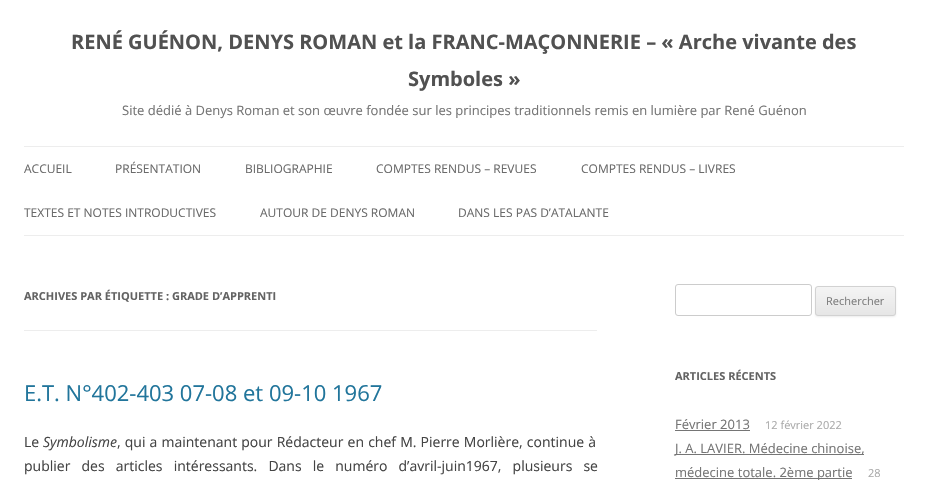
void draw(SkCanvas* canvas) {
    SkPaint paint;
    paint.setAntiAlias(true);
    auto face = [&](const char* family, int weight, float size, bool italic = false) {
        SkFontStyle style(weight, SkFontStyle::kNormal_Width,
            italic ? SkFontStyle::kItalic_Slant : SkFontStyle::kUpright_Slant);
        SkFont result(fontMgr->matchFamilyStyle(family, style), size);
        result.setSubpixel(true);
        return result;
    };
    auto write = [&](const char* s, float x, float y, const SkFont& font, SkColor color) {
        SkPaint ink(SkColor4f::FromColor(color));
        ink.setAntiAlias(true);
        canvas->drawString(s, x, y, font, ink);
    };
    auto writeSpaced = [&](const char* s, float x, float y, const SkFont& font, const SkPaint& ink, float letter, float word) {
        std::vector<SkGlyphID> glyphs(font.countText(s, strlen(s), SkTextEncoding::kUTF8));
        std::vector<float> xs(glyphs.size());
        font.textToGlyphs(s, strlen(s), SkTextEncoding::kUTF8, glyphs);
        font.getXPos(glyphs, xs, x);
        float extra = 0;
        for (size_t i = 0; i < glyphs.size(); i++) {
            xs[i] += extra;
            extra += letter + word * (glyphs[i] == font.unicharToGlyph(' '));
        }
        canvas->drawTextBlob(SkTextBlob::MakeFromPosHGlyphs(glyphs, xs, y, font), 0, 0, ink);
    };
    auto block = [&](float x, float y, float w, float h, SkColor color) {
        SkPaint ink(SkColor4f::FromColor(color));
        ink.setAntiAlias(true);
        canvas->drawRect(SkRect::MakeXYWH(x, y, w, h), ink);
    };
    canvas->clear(SK_ColorWHITE);
    auto kFont1 = face("Open Sans", 700, 20);
    write("RENÉ GUÉNON, DENYS ROMAN et la FRANC-MAÇONNERIE – « Arche vivante des", 71, 49, kFont1, SkColorSetRGB(81, 81, 81));
    write("Symboles »", 408, 86, kFont1, SkColorSetRGB(81, 81, 81));
    auto kFont2 = face("Open Sans", 400, 13);
    write("Site dédié à Denys Roman et son œuvre fondée sur les principes traditionnels remis en lumière par René Guénon", 122, 115, kFont2, SkColorSetRGB(117, 117, 117));
    block(24, 146, 880, 1, SkColorSetRGB(237, 237, 237));
    block(24, 235, 880, 1, SkColorSetRGB(237, 237, 237));
    auto kFont3 = face("Open Sans", 400, 12);
    write("ACCUEIL", 24, 173, kFont3, SkColorSetRGB(106, 106, 106));
    write("PRÉSENTATION", 115, 173, kFont3, SkColorSetRGB(106, 106, 106));
    write("BIBLIOGRAPHIE", 245, 173, kFont3, SkColorSetRGB(106, 106, 106));
    write("COMPTES RENDUS – REVUES", 376, 173, kFont3, SkColorSetRGB(106, 106, 106));
    write("COMPTES RENDUS – LIVRES", 581, 173, kFont3, SkColorSetRGB(106, 106, 106));
    write("TEXTES ET NOTES INTRODUCTIVES", 24, 217, kFont3, SkColorSetRGB(106, 106, 106));
    write("AUTOUR DE DENYS ROMAN", 260, 217, kFont3, SkColorSetRGB(106, 106, 106));
    write("DANS LES PAS D’ATALANTE", 458, 217, kFont3, SkColorSetRGB(106, 106, 106));
    block(24, 330, 573, 1, SkColorSetRGB(237, 237, 237));
    auto kFont4 = face("Open Sans", 700, 11);
    write("ARCHIVES PAR ÉTIQUETTE : GRADE D’APPRENTI", 24, 300, kFont4, SkColorSetRGB(99, 99, 99));
    auto kFont5 = face("Open Sans", 400, 22);
    write("E.T. N°402-403 07-08 et 09-10 1967", 24, 401, kFont5, SkColorSetRGB(33, 117, 155));
    auto kFont6 = face("Open Sans", 400, 14);
    write("Le", 24, 447, kFont6, SkColorSetRGB(68, 68, 68));
    auto kFont7 = face("Open Sans", 400, 14, true);
    write("Symbolisme", 43, 447, kFont7, SkColorSetRGB(68, 68, 68));
    paint.setColor(SkColorSetRGB(68, 68, 68));
    writeSpaced(", qui a maintenant pour Rédacteur en chef M. Pierre Morlière, continue à", 117, 447, kFont6, paint, 0, 0.5f);
    writeSpaced("publier des articles intéressants. Dans le numéro d’avril-juin1967, plusieurs se", 24, 471, kFont6, paint, 0, 7.5f);
    paint.setStyle(SkPaint::kStroke_Style);
    paint.setStrokeWidth(1);
    paint.setColor(SkColorSetRGB(204, 204, 204));
    canvas->drawRoundRect(SkRect::MakeXYWH(675.5f, 284.5f, 136, 31), 2.5f, 2.5f, paint);
    paint.setStyle(SkPaint::kFill_Style);
    paint.setColor(SkColorSetARGB(26, 64, 64, 64));
    paint.setMaskFilter(SkMaskFilter::MakeBlur(kNormal_SkBlurStyle, 1));
    canvas->drawRoundRect(SkRect::MakeXYWH(815, 287, 81, 30), 3, 3, paint);
    paint.setMaskFilter(nullptr);
    canvas->save();
    canvas->clipPath(SkPathBuilder().moveTo(818, 286).lineTo(893, 286).cubicTo(894.5f, 286, 896, 287.5f, 896, 289).lineTo(896, 313).cubicTo(896, 314.5f, 894.5f, 316, 893, 316).lineTo(818, 316).cubicTo(816.5f, 316, 815, 314.5f, 815, 313).lineTo(815, 289).cubicTo(815, 287.5f, 816.5f, 286, 818, 286).close().detach(), true);
    {
        const SkColor colors[] = {SkColorSetRGB(244, 244, 244), SkColorSetRGB(230, 230, 230)};
        const float stops[] = {0, 1};
        const SkPoint ends[] = {{856, 287}, {856, 315}};
        paint.setShader(SkGradientShader::MakeLinear(ends, colors, stops, 2, SkTileMode::kClamp));
        paint.setAlpha(255);
    }
    canvas->drawRect(SkRect::MakeXYWH(815, 287, 81, 28), paint);
    canvas->restore();
    paint.setStyle(SkPaint::kStroke_Style);
    paint.setShader(nullptr);
    paint.setColor(SkColorSetRGB(210, 210, 210));
    canvas->drawRoundRect(SkRect::MakeXYWH(815.5f, 286.5f, 80, 29), 2.5f, 2.5f, paint);
    auto kFont8 = face("Open Sans", 400, 11);
    write("Rechercher", 826, 305, kFont8, SkColorSetRGB(124, 124, 124));
    write("ARTICLES RÉCENTS", 675, 380, kFont4, SkColorSetRGB(99, 99, 99));
    write("Février 2013", 675, 429, kFont2, SkColorSetRGB(117, 117, 117));
    block(675, 430, 75, 1, SkColorSetRGB(117, 117, 117));
    write("12 février 2022", 765, 429, kFont8, SkColorSetRGB(170, 170, 170));
    block(675, 454, 189, 1, SkColorSetRGB(117, 117, 117));
    write("J. A. LAVIER. Médecine chinoise,", 675, 453, kFont2, SkColorSetRGB(117, 117, 117));
    block(675, 478, 177, 1, SkColorSetRGB(117, 117, 117));
    write("médecine totale. 2ème partie", 675, 477, kFont2, SkColorSetRGB(117, 117, 117));
    write("28", 868, 477, kFont8, SkColorSetRGB(170, 170, 170));
}
